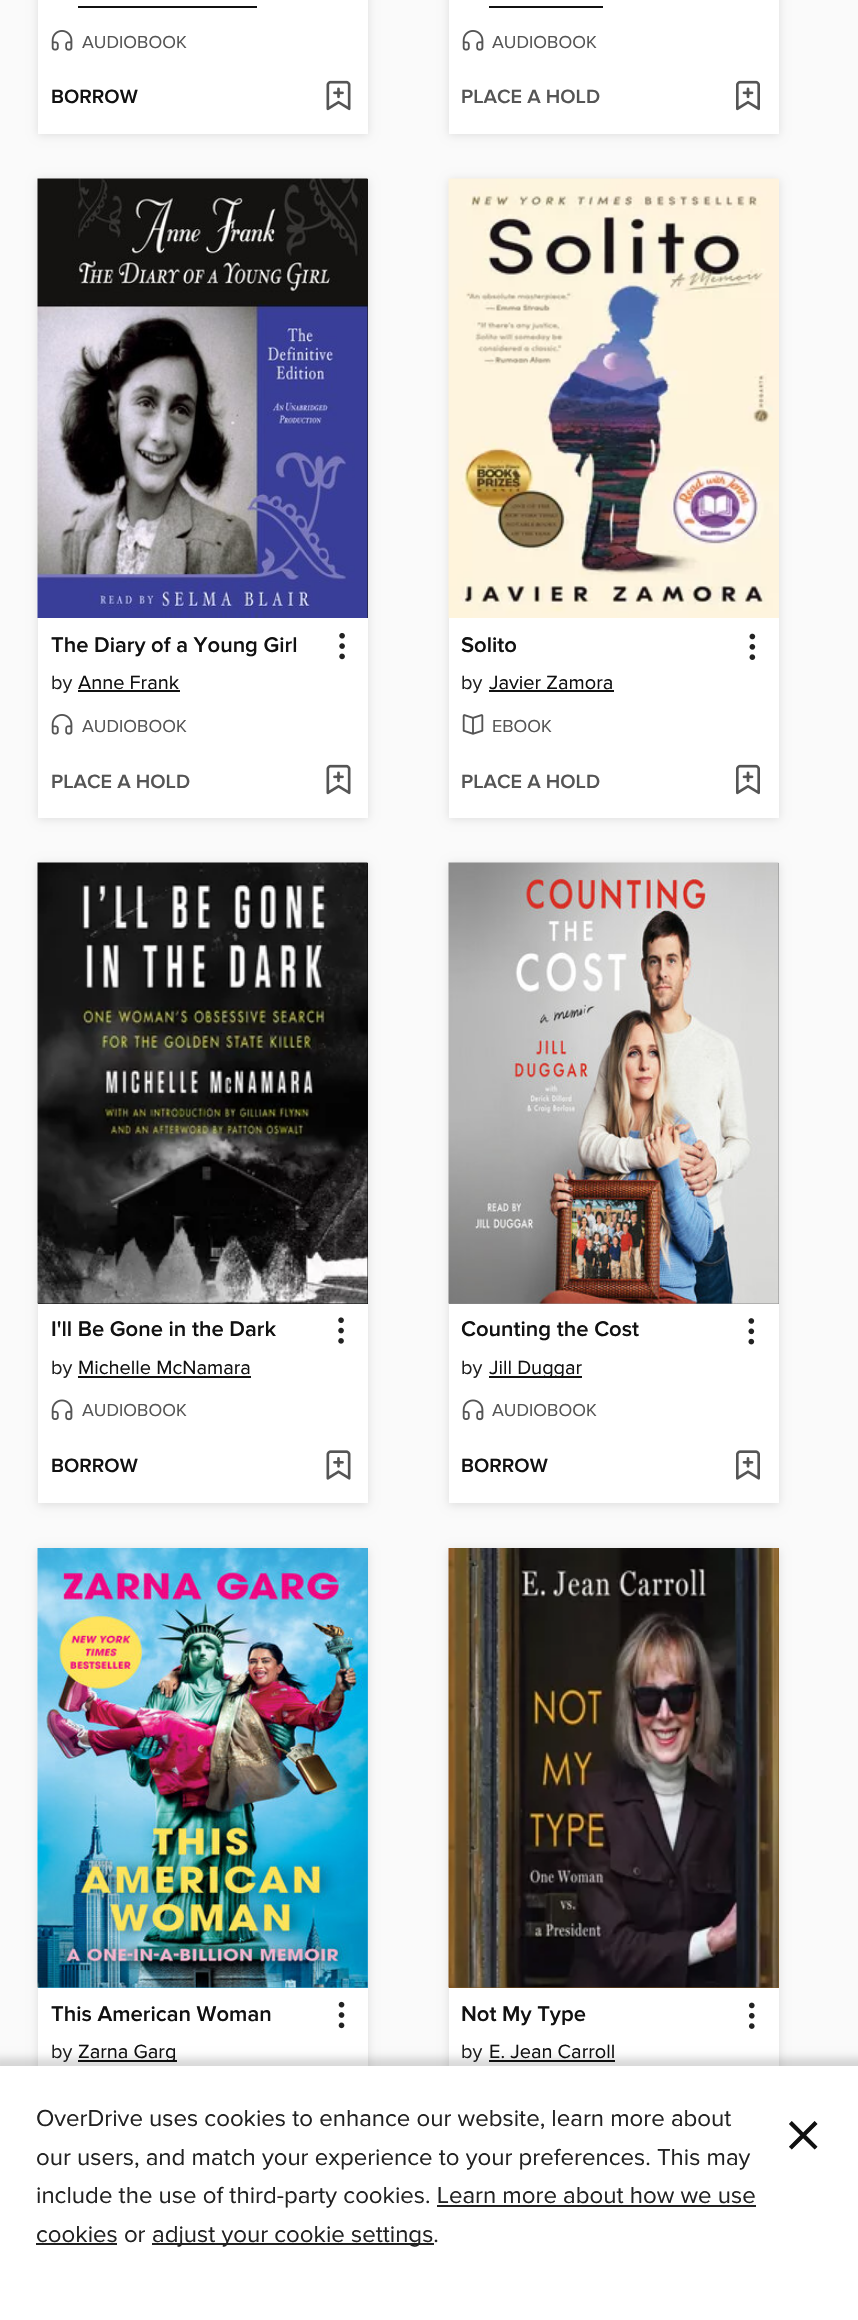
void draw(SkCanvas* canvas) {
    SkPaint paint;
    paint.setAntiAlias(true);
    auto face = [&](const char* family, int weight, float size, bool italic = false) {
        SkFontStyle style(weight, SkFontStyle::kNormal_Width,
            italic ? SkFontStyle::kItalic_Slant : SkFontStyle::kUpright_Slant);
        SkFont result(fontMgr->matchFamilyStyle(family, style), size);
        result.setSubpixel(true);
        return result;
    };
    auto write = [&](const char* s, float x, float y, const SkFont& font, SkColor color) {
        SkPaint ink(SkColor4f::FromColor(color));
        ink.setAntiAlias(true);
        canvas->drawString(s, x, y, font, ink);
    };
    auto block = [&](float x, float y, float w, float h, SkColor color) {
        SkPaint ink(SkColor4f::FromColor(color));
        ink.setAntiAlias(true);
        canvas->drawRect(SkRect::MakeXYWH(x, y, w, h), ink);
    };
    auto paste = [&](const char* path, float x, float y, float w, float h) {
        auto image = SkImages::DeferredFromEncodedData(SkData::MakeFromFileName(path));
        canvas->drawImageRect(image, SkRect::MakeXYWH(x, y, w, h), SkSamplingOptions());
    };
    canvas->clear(SkColorSetRGB(250, 250, 250));
    paint.setColor(SkColorSetRGB(221, 221, 221));
    paint.setMaskFilter(SkMaskFilter::MakeBlur(kNormal_SkBlurStyle, 4.5f));
    canvas->drawRect(SkRect::MakeXYWH(38, -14, 330, 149), paint);
    paint.setMaskFilter(nullptr);
    block(38, 0, 330, 134, SK_ColorWHITE);
    block(78, 6, 179, 2, SkColorSetRGB(17, 17, 17));
    paste("pic1.png", 51, 30, 22, 21);
    auto kFont1 = face("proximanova", 400, 18);
    write("AUDIOBOOK", 82, 48, kFont1, SkColorSetRGB(85, 85, 85));
    auto kFont2 = face("Proxima Nova", 600, 20);
    write("BORROW", 51, 103, kFont2, SkColorSetRGB(17, 17, 17));
    paste("pic2.png", 326, 80, 25, 31);
    paint.setMaskFilter(SkMaskFilter::MakeBlur(kNormal_SkBlurStyle, 4.5f));
    canvas->drawRect(SkRect::MakeXYWH(449, -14, 330, 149), paint);
    paint.setMaskFilter(nullptr);
    block(449, 0, 330, 134, SK_ColorWHITE);
    block(489, 6, 114, 2, SkColorSetRGB(17, 17, 17));
    paste("pic1.png", 462, 30, 22, 21);
    write("AUDIOBOOK", 492, 48, kFont1, SkColorSetRGB(85, 85, 85));
    write("PLACE A HOLD", 461, 103, kFont2, SkColorSetRGB(85, 85, 85));
    paste("pic3.png", 736, 80, 24, 31);
    paint.setMaskFilter(SkMaskFilter::MakeBlur(kNormal_SkBlurStyle, 4.5f));
    canvas->drawRect(SkRect::MakeXYWH(38, 180, 330, 639), paint);
    paint.setMaskFilter(nullptr);
    block(38, 618, 330, 200, SK_ColorWHITE);
    block(367, 179, 1, 439, SkColorSetRGB(20, 19, 17));
    paste("pic4.png", 37, 178, 331, 440);
    auto kFont3 = face("Proxima Nova", 600, 22);
    write("The Diary of a Young Girl", 51, 652, kFont3, SkColorSetRGB(17, 17, 17));
    paste("pic5.png", 339, 633, 6, 27);
    auto kFont4 = face("proximanova", 400, 20);
    write("by", 51, 689, kFont4, SkColorSetRGB(34, 34, 34));
    write("Anne Frank", 78, 689, kFont4, SkColorSetRGB(17, 17, 17));
    block(78, 690, 102, 2, SkColorSetRGB(17, 17, 17));
    paste("pic1.png", 51, 714, 22, 21);
    write("AUDIOBOOK", 82, 732, kFont1, SkColorSetRGB(85, 85, 85));
    write("PLACE A HOLD", 51, 788, kFont2, SkColorSetRGB(85, 85, 85));
    paste("pic2.png", 326, 764, 25, 31);
    paint.setMaskFilter(SkMaskFilter::MakeBlur(kNormal_SkBlurStyle, 4.5f));
    canvas->drawRect(SkRect::MakeXYWH(449, 180, 330, 639), paint);
    paint.setMaskFilter(nullptr);
    block(449, 618, 330, 200, SK_ColorWHITE);
    block(778, 179, 1, 439, SkColorSetRGB(255, 244, 222));
    paste("pic6.png", 448, 178, 331, 440);
    write("Solito", 461, 652, kFont3, SkColorSetRGB(17, 17, 17));
    paste("pic7.png", 749, 633, 7, 27);
    write("by", 461, 689, kFont4, SkColorSetRGB(34, 34, 34));
    write("Javier Zamora", 489, 689, kFont4, SkColorSetRGB(17, 17, 17));
    block(489, 690, 125, 2, SkColorSetRGB(17, 17, 17));
    paste("pic8.png", 462, 714, 22, 21);
    write("EBOOK", 492, 732, kFont1, SkColorSetRGB(85, 85, 85));
    write("PLACE A HOLD", 461, 788, kFont2, SkColorSetRGB(85, 85, 85));
    paste("pic3.png", 736, 764, 24, 31);
    paint.setMaskFilter(SkMaskFilter::MakeBlur(kNormal_SkBlurStyle, 4.5f));
    canvas->drawRect(SkRect::MakeXYWH(38, 864, 330, 641), paint);
    paint.setMaskFilter(nullptr);
    block(38, 1304, 330, 199, SK_ColorWHITE);
    block(38, 863, 330, 441, SkColorSetRGB(8, 8, 8));
    paste("pic9.png", 37, 862, 331, 442);
    write("I'll Be Gone in the Dark", 51, 1336, kFont3, SkColorSetRGB(17, 17, 17));
    paste("pic10.png", 338, 1317, 6, 27);
    write("by", 51, 1374, kFont4, SkColorSetRGB(34, 34, 34));
    write("Michelle McNamara", 78, 1374, kFont4, SkColorSetRGB(17, 17, 17));
    block(78, 1376, 173, 2, SkColorSetRGB(17, 17, 17));
    paste("pic11.png", 51, 1399, 22, 22);
    write("AUDIOBOOK", 82, 1416, kFont1, SkColorSetRGB(85, 85, 85));
    write("BORROW", 51, 1472, kFont2, SkColorSetRGB(17, 17, 17));
    paste("pic12.png", 326, 1450, 25, 30);
    paint.setMaskFilter(SkMaskFilter::MakeBlur(kNormal_SkBlurStyle, 4.5f));
    canvas->drawRect(SkRect::MakeXYWH(449, 864, 330, 641), paint);
    paint.setMaskFilter(nullptr);
    block(449, 1304, 330, 199, SK_ColorWHITE);
    block(449, 863, 330, 441, SkColorSetRGB(139, 139, 139));
    paste("pic13.png", 448, 862, 331, 442);
    write("Counting the Cost", 461, 1336, kFont3, SkColorSetRGB(17, 17, 17));
    paste("pic14.png", 748, 1318, 7, 27);
    write("by", 461, 1374, kFont4, SkColorSetRGB(34, 34, 34));
    block(489, 1376, 93, 2, SkColorSetRGB(17, 17, 17));
    write("Jill Duggar", 489, 1374, kFont4, SkColorSetRGB(17, 17, 17));
    paste("pic11.png", 462, 1399, 22, 22);
    write("AUDIOBOOK", 492, 1416, kFont1, SkColorSetRGB(85, 85, 85));
    write("BORROW", 461, 1472, kFont2, SkColorSetRGB(17, 17, 17));
    paste("pic15.png", 736, 1450, 24, 30);
    paint.setMaskFilter(SkMaskFilter::MakeBlur(kNormal_SkBlurStyle, 4.5f));
    canvas->drawRect(SkRect::MakeXYWH(38, 1550, 330, 639), paint);
    paint.setMaskFilter(nullptr);
    block(38, 1988, 330, 78, SK_ColorWHITE);
    block(38, 1548, 330, 440, SkColorSetRGB(63, 174, 220));
    paste("pic16.png", 37, 1548, 331, 440);
    write("This American Woman", 51, 2021, kFont3, SkColorSetRGB(17, 17, 17));
    paste("pic17.png", 338, 2001, 7, 28);
    write("by", 51, 2058, kFont4, SkColorSetRGB(34, 34, 34));
    block(78, 2060, 99, 2, SkColorSetRGB(17, 17, 17));
    write("Zarna Garg", 78, 2058, kFont4, SkColorSetRGB(17, 17, 17));
    paint.setMaskFilter(SkMaskFilter::MakeBlur(kNormal_SkBlurStyle, 4.5f));
    canvas->drawRect(SkRect::MakeXYWH(449, 1550, 330, 639), paint);
    paint.setMaskFilter(nullptr);
    block(449, 1988, 330, 78, SK_ColorWHITE);
    block(449, 1548, 330, 440, SkColorSetRGB(137, 91, 32));
    paste("pic18.png", 448, 1548, 331, 440);
    write("Not My Type", 461, 2021, kFont3, SkColorSetRGB(17, 17, 17));
    paste("pic19.png", 748, 2002, 7, 27);
    write("by", 461, 2058, kFont4, SkColorSetRGB(34, 34, 34));
    write("E. Jean Carroll", 489, 2058, kFont4, SkColorSetRGB(17, 17, 17));
    block(489, 2060, 126, 2, SkColorSetRGB(17, 17, 17));
    paint.setColor(SkColorSetARGB(38, 0, 0, 0));
    paint.setMaskFilter(SkMaskFilter::MakeBlur(kNormal_SkBlurStyle, 4));
    canvas->drawRect(SkRect::MakeXYWH(-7, 2058, 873, 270), paint);
    paint.setMaskFilter(nullptr);
    block(0, 2066, 858, 254, SK_ColorWHITE);
    auto kFont5 = face("proximanova", 400, 24);
    write("OverDrive uses cookies to enhance our website, learn more about", 36, 2126, kFont5, SkColorSetRGB(34, 34, 34));
    write("our users, and match your experience to your preferences. This may", 36, 2165, kFont5, SkColorSetRGB(34, 34, 34));
    write("include the use of third-party cookies. Learn more about how we use", 36, 2203, kFont5, SkColorSetRGB(34, 34, 34));
    block(437, 2205, 319, 2, SkColorSetRGB(34, 34, 34));
    write("cookies or", 36, 2242, kFont5, SkColorSetRGB(34, 34, 34));
    block(36, 2243, 81, 2, SkColorSetRGB(34, 34, 34));
    block(152, 2243, 282, 2, SkColorSetRGB(34, 34, 34));
    write("adjust your cookie settings.", 152, 2242, kFont5, SkColorSetRGB(34, 34, 34));
    auto kFont6 = face("proximanova", 400, 77);
    write("×", 784, 2161, kFont6, SkColorSetRGB(17, 17, 17));
}
